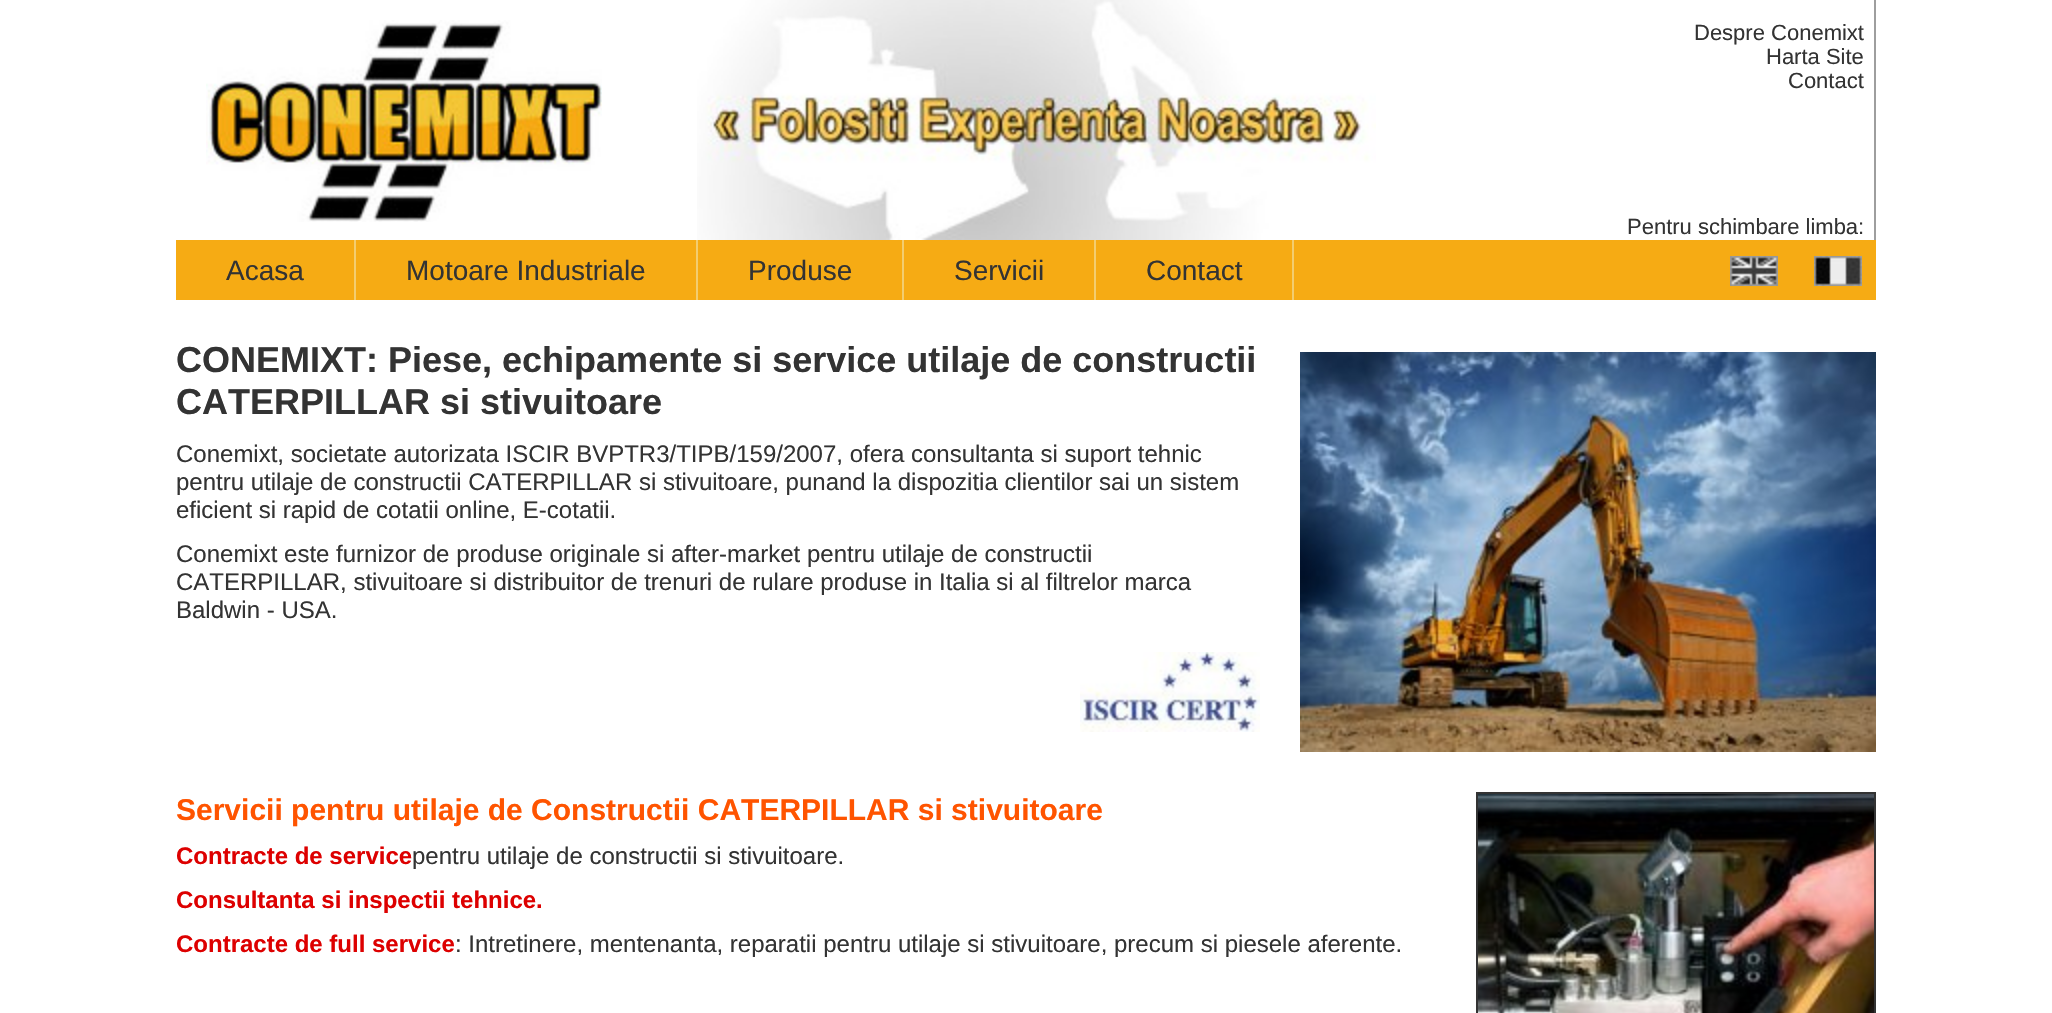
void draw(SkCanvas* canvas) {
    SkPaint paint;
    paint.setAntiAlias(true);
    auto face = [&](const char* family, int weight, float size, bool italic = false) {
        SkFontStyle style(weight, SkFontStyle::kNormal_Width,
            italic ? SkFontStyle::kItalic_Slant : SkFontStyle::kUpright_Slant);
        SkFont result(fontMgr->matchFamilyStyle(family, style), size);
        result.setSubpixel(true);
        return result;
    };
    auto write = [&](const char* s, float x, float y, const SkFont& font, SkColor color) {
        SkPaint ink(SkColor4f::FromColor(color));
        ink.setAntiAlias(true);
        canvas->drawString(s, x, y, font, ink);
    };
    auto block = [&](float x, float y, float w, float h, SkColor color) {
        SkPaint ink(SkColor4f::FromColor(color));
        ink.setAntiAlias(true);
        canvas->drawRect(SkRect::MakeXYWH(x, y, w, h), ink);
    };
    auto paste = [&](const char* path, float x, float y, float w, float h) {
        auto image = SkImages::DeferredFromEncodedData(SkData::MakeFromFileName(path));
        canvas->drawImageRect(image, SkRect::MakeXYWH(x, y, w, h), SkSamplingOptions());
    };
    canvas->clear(SK_ColorWHITE);
    paste("pic1.png", 697, 0, 679, 240);
    block(1874, 0, 2, 240, SkColorSetRGB(158, 158, 158));
    paste("pic2.png", 206, 20, 396, 202);
    auto kFont1 = face("Liberation Sans", 400, 22);
    write("Despre Conemixt", 1694, 40, kFont1, SkColorSetRGB(51, 51, 51));
    write("Harta Site", 1766, 64, kFont1, SkColorSetRGB(51, 51, 51));
    write("Contact", 1788, 88, kFont1, SkColorSetRGB(51, 51, 51));
    write("Pentru schimbare limba:", 1627, 234, kFont1, SkColorSetRGB(51, 51, 51));
    block(176, 240, 1700, 60, SkColorSetRGB(246, 171, 20));
    block(354, 240, 2, 60, SkColorSetRGB(243, 205, 112));
    auto kFont2 = face("Liberation Sans", 400, 28);
    write("Acasa", 226, 280, kFont2, SkColorSetRGB(51, 51, 51));
    block(696, 240, 2, 60, SkColorSetRGB(243, 205, 112));
    write("Motoare Industriale", 406, 280, kFont2, SkColorSetRGB(51, 51, 51));
    block(902, 240, 2, 60, SkColorSetRGB(243, 205, 112));
    write("Produse", 748, 280, kFont2, SkColorSetRGB(51, 51, 51));
    block(1094, 240, 2, 60, SkColorSetRGB(243, 205, 112));
    write("Servicii", 954, 280, kFont2, SkColorSetRGB(51, 51, 51));
    block(1292, 240, 2, 60, SkColorSetRGB(243, 205, 112));
    write("Contact", 1146, 280, kFont2, SkColorSetRGB(51, 51, 51));
    paste("pic3.png", 1730, 256, 48, 30);
    paste("pic4.png", 1814, 256, 48, 30);
    auto kFont3 = face("Liberation Sans", 700, 36);
    write("CONEMIXT: Piese, echipamente si service utilaje de constructii", 176, 372, kFont3, SkColorSetRGB(51, 51, 51));
    write("CATERPILLAR si stivuitoare", 176, 414, kFont3, SkColorSetRGB(51, 51, 51));
    paste("pic5.png", 1300, 352, 576, 400);
    auto kFont4 = face("Liberation Sans", 400, 24);
    write("Conemixt, societate autorizata ISCIR BVPTR3/TIPB/159/2007, ofera consultanta si suport tehnic", 176, 462, kFont4, SkColorSetRGB(51, 51, 51));
    write("pentru utilaje de constructii CATERPILLAR si stivuitoare, punand la dispozitia clientilor sai un sistem", 176, 490, kFont4, SkColorSetRGB(51, 51, 51));
    write("eficient si rapid de cotatii online, E-cotatii.", 176, 518, kFont4, SkColorSetRGB(51, 51, 51));
    write("Conemixt este furnizor de produse originale si after-market pentru utilaje de constructii", 176, 562, kFont4, SkColorSetRGB(51, 51, 51));
    write("CATERPILLAR, stivuitoare si distribuitor de trenuri de rulare produse in Italia si al filtrelor marca", 176, 590, kFont4, SkColorSetRGB(51, 51, 51));
    write("Baldwin - USA.", 176, 618, kFont4, SkColorSetRGB(51, 51, 51));
    paste("pic6.png", 1080, 652, 180, 80);
    auto kFont5 = face("Liberation Sans", 700, 30);
    write("Servicii pentru utilaje de Constructii CATERPILLAR si stivuitoare", 176, 820, kFont5, SkColorSetRGB(255, 84, 0));
    paint.setStyle(SkPaint::kStroke_Style);
    paint.setStrokeWidth(2);
    paint.setColor(SkColorSetRGB(51, 51, 51));
    canvas->drawRect(SkRect::MakeXYWH(1477, 793, 398, 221), paint);
    paste("pic7.png", 1478, 794, 396, 219);
    auto kFont6 = face("Liberation Sans", 700, 24);
    write("Contracte de service", 176, 864, kFont6, SkColorSetRGB(221, 0, 0));
    write("pentru utilaje de constructii si stivuitoare.", 412, 864, kFont4, SkColorSetRGB(51, 51, 51));
    write("Consultanta si inspectii tehnice.", 176, 908, kFont6, SkColorSetRGB(221, 0, 0));
    write("Contracte de full service", 176, 952, kFont6, SkColorSetRGB(221, 0, 0));
    write(": Intretinere, mentenanta, reparatii pentru utilaje si stivuitoare, precum si piesele aferente.", 455, 952, kFont4, SkColorSetRGB(51, 51, 51));
}
